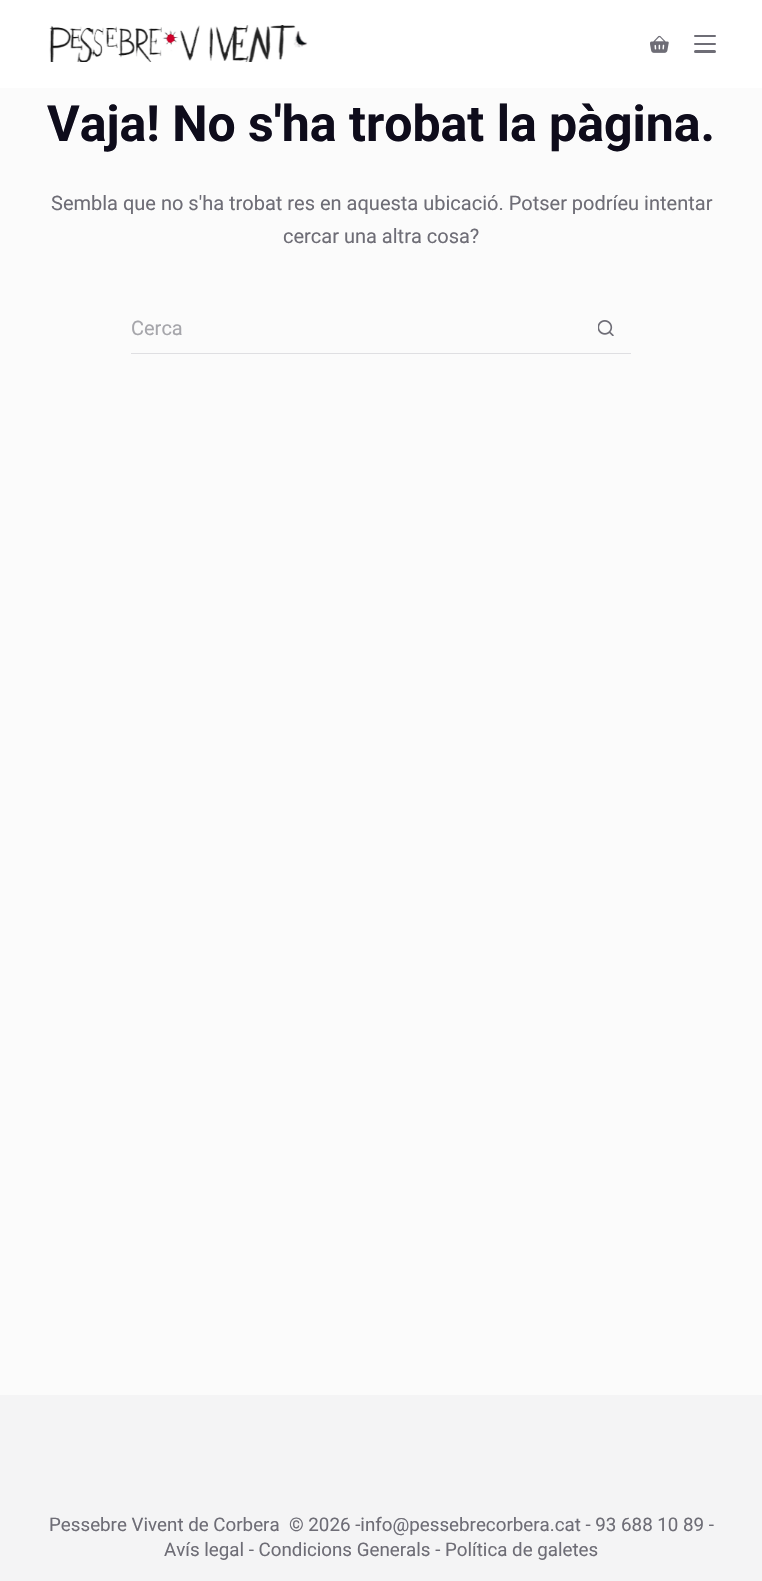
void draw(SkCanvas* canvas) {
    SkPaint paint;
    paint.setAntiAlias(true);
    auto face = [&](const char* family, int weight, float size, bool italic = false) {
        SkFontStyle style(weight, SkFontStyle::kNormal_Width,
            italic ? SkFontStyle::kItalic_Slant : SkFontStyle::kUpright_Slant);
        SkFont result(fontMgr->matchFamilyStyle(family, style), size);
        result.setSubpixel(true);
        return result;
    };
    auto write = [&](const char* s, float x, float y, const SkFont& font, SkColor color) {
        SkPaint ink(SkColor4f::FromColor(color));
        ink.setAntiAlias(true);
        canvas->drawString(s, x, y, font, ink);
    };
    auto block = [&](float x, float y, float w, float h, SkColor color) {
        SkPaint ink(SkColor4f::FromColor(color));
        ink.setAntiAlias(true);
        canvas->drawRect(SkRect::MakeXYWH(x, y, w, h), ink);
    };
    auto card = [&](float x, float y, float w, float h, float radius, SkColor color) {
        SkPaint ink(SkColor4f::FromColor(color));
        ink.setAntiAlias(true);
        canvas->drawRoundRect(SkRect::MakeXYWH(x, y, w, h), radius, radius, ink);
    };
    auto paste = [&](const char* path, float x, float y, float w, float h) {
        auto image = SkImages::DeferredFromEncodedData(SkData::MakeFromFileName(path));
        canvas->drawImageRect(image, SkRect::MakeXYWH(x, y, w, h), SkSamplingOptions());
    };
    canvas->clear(SkColorSetRGB(251, 251, 251));
    block(0, 0, 762, 88, SK_ColorWHITE);
    paste("pic1.png", 49, 25, 259, 37);
    paste("pic2.png", 650, 35, 19, 18);
    card(694, 35, 22, 2, 1, SkColorSetRGB(110, 109, 118));
    card(694, 43, 22, 2, 1, SkColorSetRGB(110, 109, 118));
    card(694, 50, 22, 3, 1.5f, SkColorSetRGB(110, 109, 118));
    auto kFont1 = face("Roboto", 700, 50);
    write("Vaja! No s'ha trobat la pàgina.", 47, 141, kFont1, SkColorSetRGB(14, 12, 27));
    auto kFont2 = face("Roboto", 400, 20);
    write("Sembla que no s'ha trobat res en aquesta ubicació. Potser podríeu intentar", 51, 210, kFont2, SkColorSetRGB(110, 109, 118));
    write("cercar una altra cosa?", 283, 243, kFont2, SkColorSetRGB(110, 109, 118));
    block(131, 353, 500, 1, SkColorSetRGB(223, 223, 226));
    write("Cerca", 131, 335, kFont2, SkColorSetRGB(166, 166, 171));
    paste("pic3.png", 598, 320, 16, 16);
    block(0, 1395, 762, 186, SkColorSetRGB(244, 244, 245));
    auto kFont3 = face("Roboto", 400, 18.75f);
    write("Pessebre Vivent de Corbera  © 2026 -info@pessebrecorbera.cat - 93 688 10 89 -", 49, 1531, kFont3, SkColorSetRGB(110, 109, 118));
    write("Avís legal - Condicions Generals - Política de galetes", 164, 1556, kFont3, SkColorSetRGB(110, 109, 118));
}
